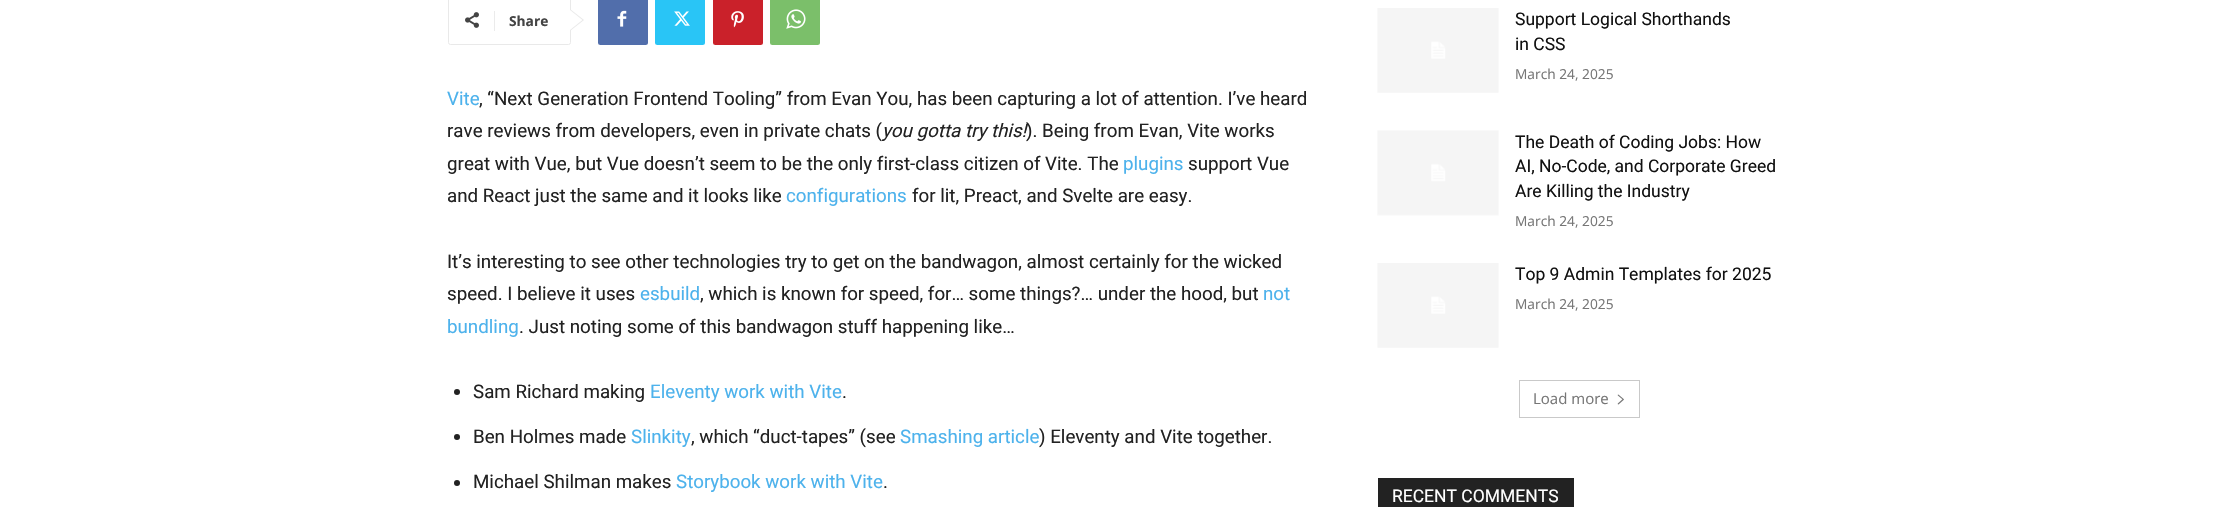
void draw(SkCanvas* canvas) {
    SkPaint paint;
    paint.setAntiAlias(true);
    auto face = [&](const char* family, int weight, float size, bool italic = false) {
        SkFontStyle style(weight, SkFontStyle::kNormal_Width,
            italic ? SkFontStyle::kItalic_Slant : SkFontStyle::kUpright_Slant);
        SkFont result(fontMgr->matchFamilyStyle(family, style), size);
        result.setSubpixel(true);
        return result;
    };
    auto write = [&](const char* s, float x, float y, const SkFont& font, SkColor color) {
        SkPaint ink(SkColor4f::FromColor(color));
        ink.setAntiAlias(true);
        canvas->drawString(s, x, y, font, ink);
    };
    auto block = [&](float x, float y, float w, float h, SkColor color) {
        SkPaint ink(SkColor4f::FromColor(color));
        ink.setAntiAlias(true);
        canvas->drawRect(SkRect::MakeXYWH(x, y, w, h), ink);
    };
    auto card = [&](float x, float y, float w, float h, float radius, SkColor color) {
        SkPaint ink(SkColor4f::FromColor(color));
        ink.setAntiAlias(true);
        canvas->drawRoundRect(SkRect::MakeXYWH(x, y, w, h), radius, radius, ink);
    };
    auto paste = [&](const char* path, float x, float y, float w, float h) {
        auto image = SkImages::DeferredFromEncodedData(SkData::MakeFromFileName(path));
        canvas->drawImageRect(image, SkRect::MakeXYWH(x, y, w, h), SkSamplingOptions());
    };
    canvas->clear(SK_ColorWHITE);
    paint.setStyle(SkPaint::kStroke_Style);
    paint.setStrokeWidth(1);
    paint.setColor(SkColorSetRGB(233, 233, 233));
    canvas->drawRoundRect(SkRect::MakeXYWH(448.5f, -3.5f, 122, 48), 2, 2, paint);
    paint.setStyle(SkPaint::kFill_Style);
    canvas->drawPath(SkPathBuilder().moveTo(570, 31).lineTo(570, 9).lineTo(584, 20).close().detach(), paint);
    paste("pic1.png", 465, 12, 14, 16);
    block(494, 11, 1, 20, SkColorSetRGB(235, 235, 235));
    auto kFont1 = face("Open Sans", 700, 13.75f);
    write("Share", 509, 26, kFont1, SkColorSetRGB(68, 68, 68));
    paint.setColor(SK_ColorWHITE);
    canvas->drawPath(SkPathBuilder().moveTo(570, 30).lineTo(570, 10).lineTo(582.5f, 20).close().detach(), paint);
    card(598, -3, 50, 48, 2.5f, SkColorSetRGB(81, 110, 171));
    paste("pic2.png", 617, 10, 10, 17);
    card(655, -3, 50, 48, 2.5f, SkColorSetRGB(41, 197, 246));
    paste("pic3.png", 674, 11, 16, 15);
    card(713, -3, 50, 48, 2.5f, SkColorSetRGB(202, 33, 42));
    paste("pic4.png", 731, 11, 13, 17);
    card(770, -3, 50, 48, 2.5f, SkColorSetRGB(123, 191, 106));
    paste("pic5.png", 786, 9, 20, 20);
    auto kFont2 = face("Roboto", 400, 18.75f);
    write("Vite", 447, 105, kFont2, SkColorSetRGB(77, 178, 236));
    write(", “Next Generation Frontend Tooling” from Evan You, has been capturing a lot of attention. I’ve heard", 479, 105, kFont2, SkColorSetRGB(34, 34, 34));
    write("rave reviews from developers, even in private chats (", 447, 137, kFont2, SkColorSetRGB(34, 34, 34));
    auto kFont3 = face("Roboto", 400, 18.75f, true);
    write("you gotta try this!", 882, 137, kFont3, SkColorSetRGB(34, 34, 34));
    write("). Being from Evan, Vite works", 1026, 137, kFont2, SkColorSetRGB(34, 34, 34));
    write("great with Vue, but Vue doesn’t seem to be the only first-class citizen of Vite. The", 447, 170, kFont2, SkColorSetRGB(34, 34, 34));
    write("plugins", 1123, 170, kFont2, SkColorSetRGB(77, 178, 236));
    write("support Vue", 1188, 170, kFont2, SkColorSetRGB(34, 34, 34));
    write("and React just the same and it looks like", 447, 202, kFont2, SkColorSetRGB(34, 34, 34));
    write("configurations", 786, 202, kFont2, SkColorSetRGB(77, 178, 236));
    write("for lit, Preact, and Svelte are easy.", 912, 202, kFont2, SkColorSetRGB(34, 34, 34));
    write("It’s interesting to see other technologies try to get on the bandwagon, almost certainly for the wicked", 447, 268, kFont2, SkColorSetRGB(34, 34, 34));
    write("speed. I believe it uses", 447, 300, kFont2, SkColorSetRGB(34, 34, 34));
    write("esbuild", 640, 300, kFont2, SkColorSetRGB(77, 178, 236));
    write(", which is known for speed, for… some things?… under the hood, but", 700, 300, kFont2, SkColorSetRGB(34, 34, 34));
    write("not", 1263, 300, kFont2, SkColorSetRGB(77, 178, 236));
    write("bundling", 447, 333, kFont2, SkColorSetRGB(77, 178, 236));
    write(". Just noting some of this bandwagon stuff happening like…", 519, 333, kFont2, SkColorSetRGB(34, 34, 34));
    paint.setColor(SkColorSetRGB(34, 34, 34));
    canvas->drawCircle(457, 392, 3, paint);
    write("Sam Richard making", 473, 398, kFont2, SkColorSetRGB(34, 34, 34));
    write("Eleventy work with Vite", 650, 398, kFont2, SkColorSetRGB(77, 178, 236));
    write(".", 842, 398, kFont2, SkColorSetRGB(34, 34, 34));
    canvas->drawCircle(457, 437, 3, paint);
    write("Ben Holmes made", 473, 443, kFont2, SkColorSetRGB(34, 34, 34));
    write("Slinkity", 631, 443, kFont2, SkColorSetRGB(77, 178, 236));
    write(", which “duct-tapes” (see", 691, 443, kFont2, SkColorSetRGB(34, 34, 34));
    write("Smashing article", 900, 443, kFont2, SkColorSetRGB(77, 178, 236));
    write(") Eleventy and Vite together.", 1039, 443, kFont2, SkColorSetRGB(34, 34, 34));
    canvas->drawCircle(457, 483, 3, paint);
    write("Michael Shilman makes", 473, 488, kFont2, SkColorSetRGB(34, 34, 34));
    write("Storybook work with Vite", 676, 488, kFont2, SkColorSetRGB(77, 178, 236));
    write(".", 883, 488, kFont2, SkColorSetRGB(34, 34, 34));
    paste("pic6.png", 1377, 8, 122, 85);
    auto kFont4 = face("Roboto", 400, 17.5f);
    write("Support Logical Shorthands", 1515, 25, kFont4, SkColorSetRGB(17, 17, 17));
    write("in CSS", 1515, 50, kFont4, SkColorSetRGB(17, 17, 17));
    auto kFont5 = face("Open Sans", 400, 13.75f);
    write("March 24, 2025", 1515, 79, kFont5, SkColorSetRGB(118, 118, 118));
    paste("pic7.png", 1377, 130, 122, 86);
    write("The Death of Coding Jobs: How", 1515, 148, kFont4, SkColorSetRGB(17, 17, 17));
    write("AI, No-Code, and Corporate Greed", 1515, 172, kFont4, SkColorSetRGB(17, 17, 17));
    write("Are Killing the Industry", 1515, 197, kFont4, SkColorSetRGB(17, 17, 17));
    write("March 24, 2025", 1515, 226, kFont5, SkColorSetRGB(118, 118, 118));
    paste("pic8.png", 1377, 263, 122, 85);
    write("Top 9 Admin Templates for 2025", 1515, 280, kFont4, SkColorSetRGB(17, 17, 17));
    write("March 24, 2025", 1515, 309, kFont5, SkColorSetRGB(118, 118, 118));
    paint.setStyle(SkPaint::kStroke_Style);
    paint.setColor(SkColorSetRGB(201, 201, 201));
    canvas->drawRect(SkRect::MakeXYWH(1519.5f, 380.5f, 120, 37), paint);
    auto kFont6 = face("Open Sans", 400, 15);
    write("Load more", 1533, 404, kFont6, SkColorSetRGB(118, 118, 118));
    paste("pic9.png", 1617, 394, 7, 11);
    block(1378, 478, 196, 29, SkColorSetRGB(34, 34, 34));
    write("RECENT COMMENTS", 1392, 502, kFont4, SK_ColorWHITE);
}
